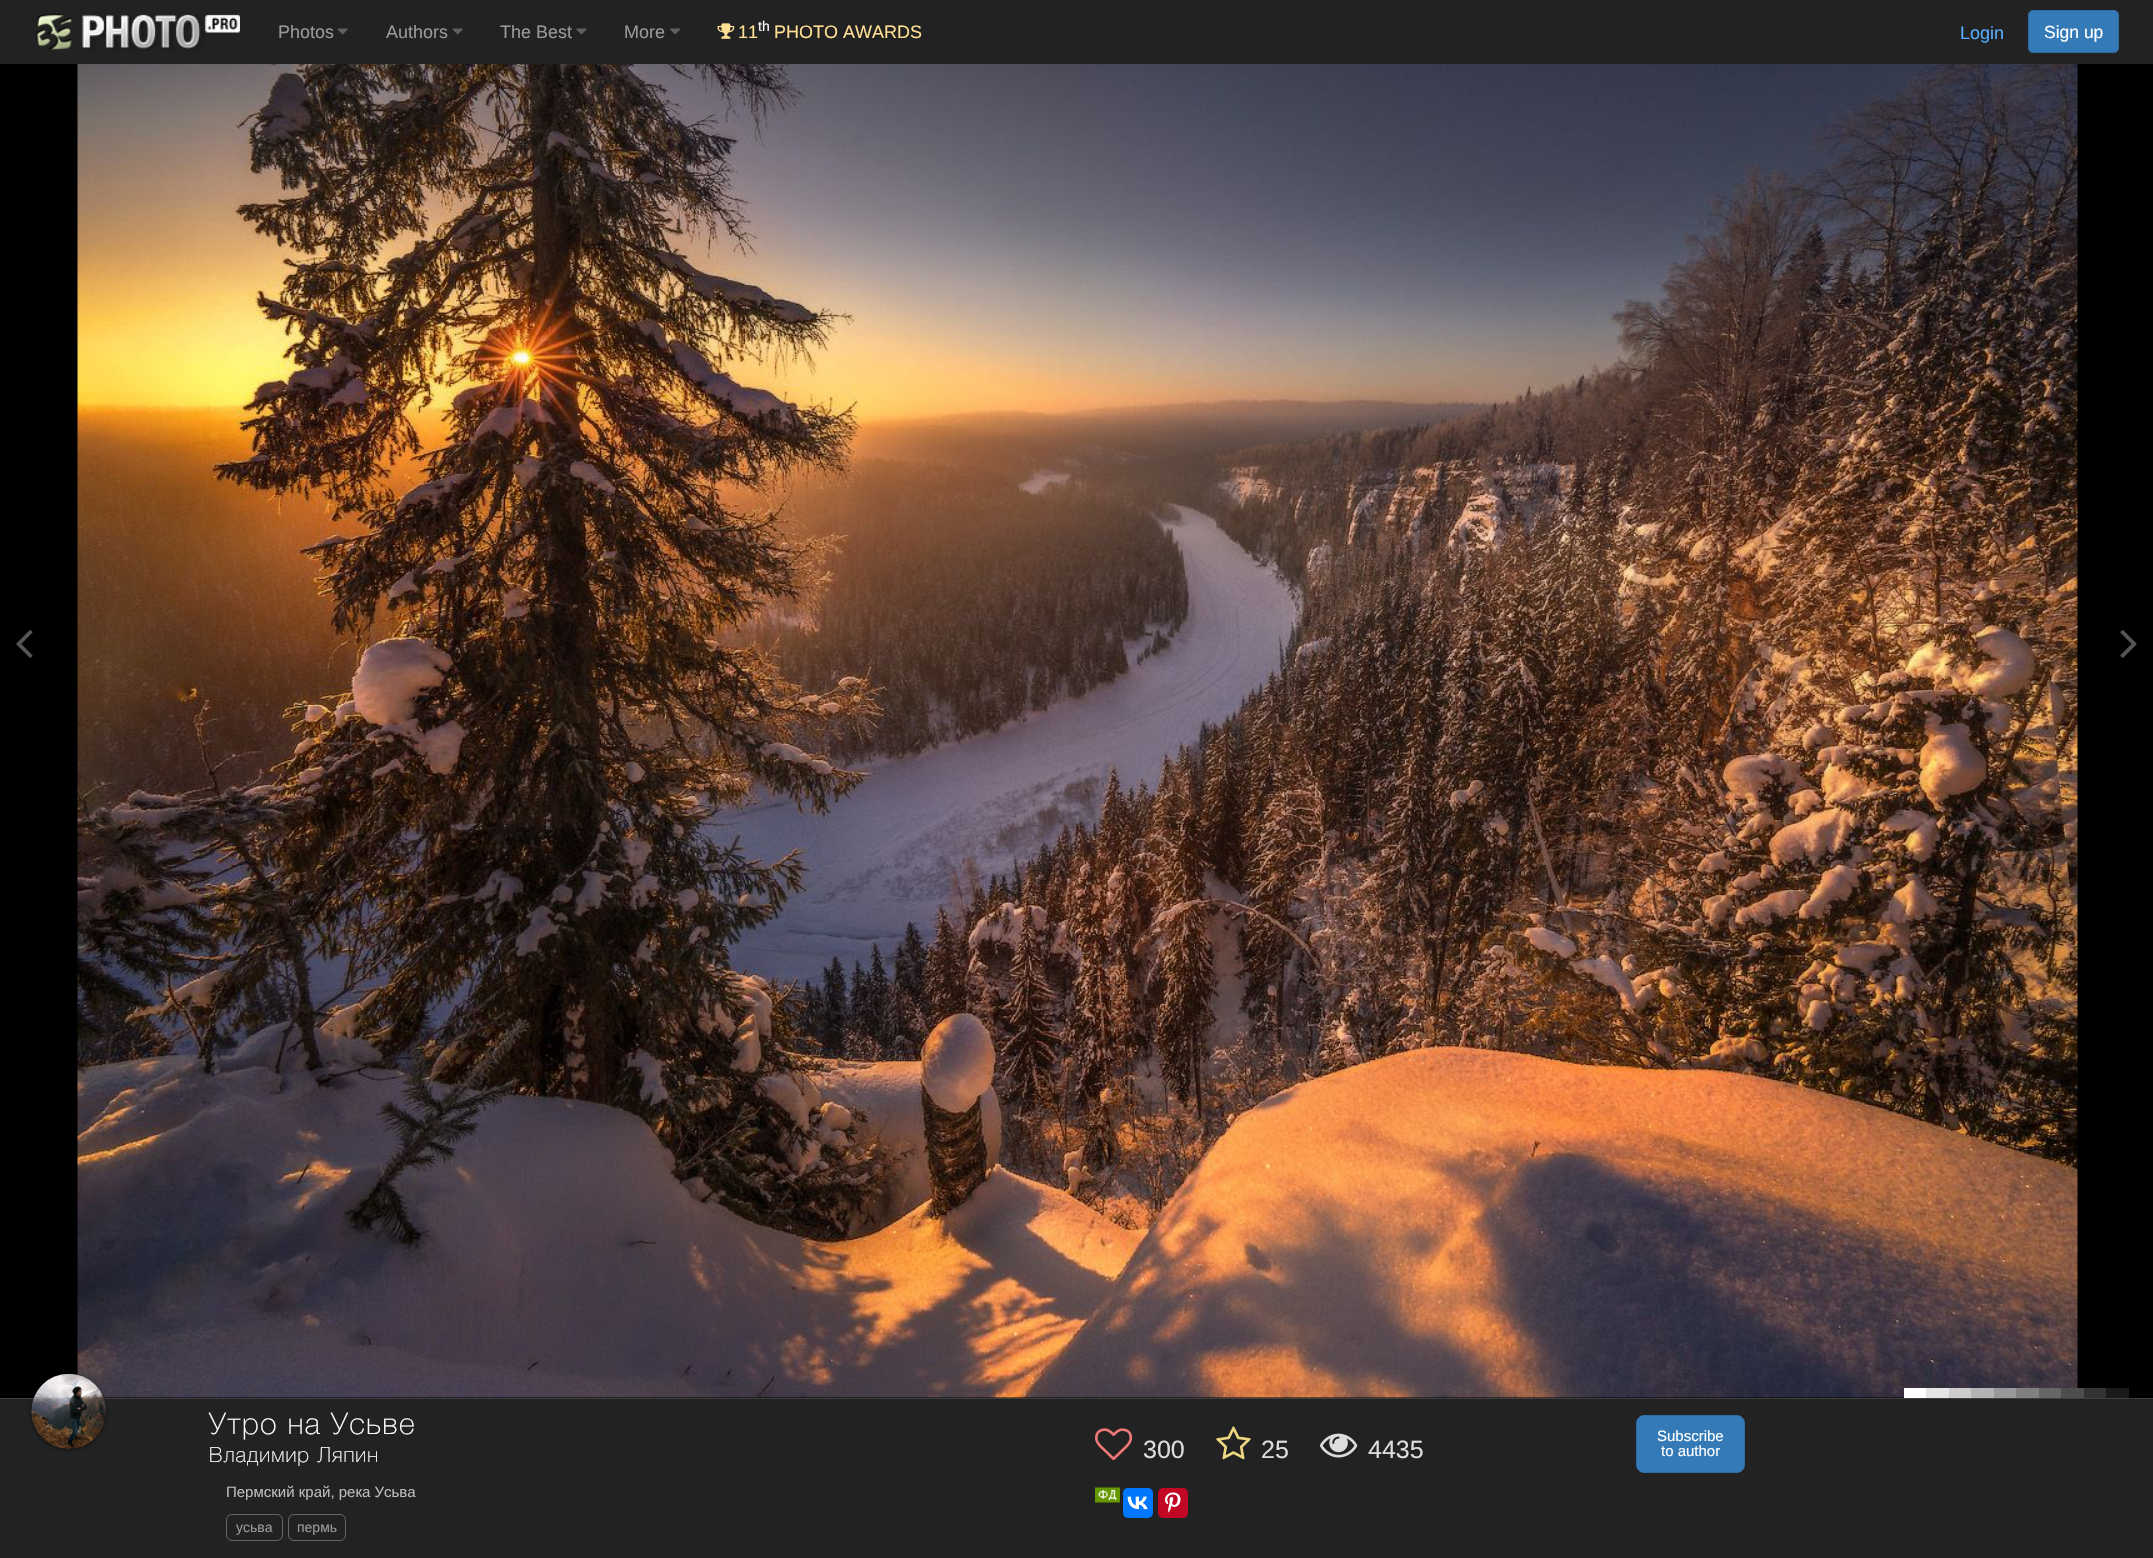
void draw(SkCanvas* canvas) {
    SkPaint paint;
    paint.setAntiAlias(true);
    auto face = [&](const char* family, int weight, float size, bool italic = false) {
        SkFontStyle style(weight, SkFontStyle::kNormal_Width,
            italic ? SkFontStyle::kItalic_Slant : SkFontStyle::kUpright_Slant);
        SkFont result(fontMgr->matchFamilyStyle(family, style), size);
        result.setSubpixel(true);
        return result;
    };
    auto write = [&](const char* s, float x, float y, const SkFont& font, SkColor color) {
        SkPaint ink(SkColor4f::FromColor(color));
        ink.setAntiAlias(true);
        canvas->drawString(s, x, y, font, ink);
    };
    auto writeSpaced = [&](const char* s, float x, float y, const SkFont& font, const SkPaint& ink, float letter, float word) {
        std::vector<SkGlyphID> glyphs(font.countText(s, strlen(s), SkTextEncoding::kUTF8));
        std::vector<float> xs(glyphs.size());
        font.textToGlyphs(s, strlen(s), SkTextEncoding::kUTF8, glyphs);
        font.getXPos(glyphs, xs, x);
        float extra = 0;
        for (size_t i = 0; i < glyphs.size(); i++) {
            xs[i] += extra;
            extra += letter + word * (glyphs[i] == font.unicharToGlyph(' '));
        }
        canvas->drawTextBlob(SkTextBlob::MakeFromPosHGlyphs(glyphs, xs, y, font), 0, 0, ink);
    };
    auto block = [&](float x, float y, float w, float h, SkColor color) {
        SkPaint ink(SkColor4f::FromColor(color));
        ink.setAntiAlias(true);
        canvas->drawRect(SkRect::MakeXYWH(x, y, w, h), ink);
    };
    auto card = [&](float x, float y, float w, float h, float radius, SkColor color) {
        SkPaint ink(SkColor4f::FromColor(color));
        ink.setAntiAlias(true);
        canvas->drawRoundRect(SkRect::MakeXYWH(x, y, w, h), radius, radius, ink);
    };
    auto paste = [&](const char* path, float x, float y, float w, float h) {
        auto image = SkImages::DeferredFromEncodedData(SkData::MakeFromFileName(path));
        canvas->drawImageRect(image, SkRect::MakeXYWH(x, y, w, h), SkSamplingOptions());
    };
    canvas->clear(SkColorSetRGB(34, 34, 34));
    paste("pic1.png", 36, 13, 204, 38);
    auto kFont1 = face("Liberation Sans", 400, 18);
    write("Photos", 278, 38, kFont1, SkColorSetRGB(153, 153, 153));
    paste("pic2.png", 337, 28, 11, 7);
    write("Authors", 386, 38, kFont1, SkColorSetRGB(153, 153, 153));
    paste("pic2.png", 452, 28, 11, 7);
    write("The Best", 500, 38, kFont1, SkColorSetRGB(153, 153, 153));
    paste("pic3.png", 576, 28, 11, 7);
    write("More", 624, 38, kFont1, SkColorSetRGB(153, 153, 153));
    paste("pic4.png", 670, 28, 11, 7);
    paste("pic5.png", 717, 23, 18, 16);
    write("11", 738, 38, kFont1, SkColorSetRGB(255, 223, 148));
    auto kFont2 = face("Liberation Sans", 400, 14);
    write("th", 758, 31, kFont2, SK_ColorWHITE);
    write("PHOTO AWARDS", 774, 38, kFont1, SkColorSetRGB(255, 223, 148));
    write("Login", 1960, 39, kFont1, SkColorSetRGB(88, 172, 255));
    paint.setColor(SkColorSetRGB(51, 122, 183));
    canvas->drawRoundRect(SkRect::MakeXYWH(2028.5f, 10.5f, 90, 42), 4.5f, 4.5f, paint);
    paint.setStyle(SkPaint::kStroke_Style);
    paint.setStrokeWidth(1);
    paint.setColor(SkColorSetRGB(46, 109, 164));
    canvas->drawRoundRect(SkRect::MakeXYWH(2028.5f, 10.5f, 90, 42), 4.5f, 4.5f, paint);
    auto kFont3 = face("Liberation Sans", 400, 17.5f);
    write("Sign up", 2044, 38, kFont3, SK_ColorWHITE);
    block(0, 64, 2153, 1334, SK_ColorBLACK);
    paste("pic6.png", 16, 630, 17, 28);
    paste("pic7.png", 77, 64, 2001, 1334);
    paste("pic8.png", 2120, 630, 17, 28);
    block(1904, 1388, 22, 10, SK_ColorWHITE);
    block(1926, 1388, 23, 10, SkColorSetRGB(229, 229, 229));
    block(1949, 1388, 22, 10, SkColorSetRGB(204, 204, 204));
    block(1971, 1388, 23, 10, SkColorSetRGB(179, 179, 179));
    block(1994, 1388, 22, 10, SkColorSetRGB(153, 153, 153));
    block(2016, 1388, 23, 10, SkColorSetRGB(128, 128, 128));
    block(2039, 1388, 22, 10, SkColorSetRGB(102, 102, 102));
    block(2061, 1388, 23, 10, SkColorSetRGB(77, 77, 77));
    block(2084, 1388, 22, 10, SkColorSetRGB(51, 51, 51));
    block(2106, 1388, 23, 10, SkColorSetRGB(26, 26, 26));
    block(0, 1398, 2153, 1, SkColorSetRGB(63, 63, 63));
    paint.setStyle(SkPaint::kFill_Style);
    paint.setColor(SkColorSetARGB(128, 0, 0, 0));
    paint.setMaskFilter(SkMaskFilter::MakeBlur(kNormal_SkBlurStyle, 2));
    canvas->drawRoundRect(SkRect::MakeXYWH(31, 1375, 75, 75), 37.5f, 37.5f, paint);
    paint.setMaskFilter(nullptr);
    paste("pic9.png", 31, 1373, 75, 76);
    auto kFont4 = face("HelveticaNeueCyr", 100, 30);
    paint.setColor(SK_ColorWHITE);
    writeSpaced("Утро на Усьве", 209, 1434, kFont4, paint, 1.5f, 0);
    auto kFont5 = face("HelveticaNeueCyr", 100, 21);
    writeSpaced("Владимир Ляпин", 209, 1462, kFont5, paint, 1, 0);
    auto kFont6 = face("Liberation Sans", 400, 15);
    write("Пермский край, река Усьва", 226, 1497, kFont6, SkColorSetRGB(187, 187, 187));
    paint.setStyle(SkPaint::kStroke_Style);
    paint.setColor(SkColorSetRGB(102, 102, 102));
    canvas->drawRoundRect(SkRect::MakeXYWH(226.5f, 1514.5f, 56, 26), 5.5f, 5.5f, paint);
    write("усьва", 236, 1532, kFont2, SkColorSetRGB(153, 153, 153));
    canvas->drawRoundRect(SkRect::MakeXYWH(288.5f, 1514.5f, 57, 26), 5.5f, 5.5f, paint);
    write("пермь", 297, 1532, kFont2, SkColorSetRGB(153, 153, 153));
    paste("pic10.png", 1095, 1428, 38, 33);
    auto kFont7 = face("Liberation Sans", 400, 25);
    write("300", 1143, 1458, kFont7, SkColorSetRGB(221, 221, 221));
    paste("pic11.png", 1216, 1426, 35, 34);
    write("25", 1261, 1458, kFont7, SkColorSetRGB(221, 221, 221));
    paste("pic12.png", 1320, 1433, 38, 25);
    write("4435", 1368, 1458, kFont7, SkColorSetRGB(221, 221, 221));
    paste("pic13.png", 1095, 1487, 25, 16);
    card(1123, 1488, 30, 30, 5, SkColorSetRGB(0, 119, 255));
    paste("pic14.png", 1127, 1496, 21, 14);
    card(1158, 1488, 30, 30, 5, SkColorSetRGB(194, 7, 36));
    paste("pic15.png", 1165, 1492, 16, 21);
    paint.setStyle(SkPaint::kFill_Style);
    paint.setColor(SkColorSetRGB(51, 122, 183));
    canvas->drawRoundRect(SkRect::MakeXYWH(1636.5f, 1415.5f, 108, 57), 7.5f, 7.5f, paint);
    paint.setStyle(SkPaint::kStroke_Style);
    paint.setColor(SkColorSetRGB(46, 109, 164));
    canvas->drawRoundRect(SkRect::MakeXYWH(1636.5f, 1415.5f, 108, 57), 7.5f, 7.5f, paint);
    write("Subscribe", 1657, 1441, kFont6, SK_ColorWHITE);
    write("to author", 1661, 1456, kFont6, SK_ColorWHITE);
}
